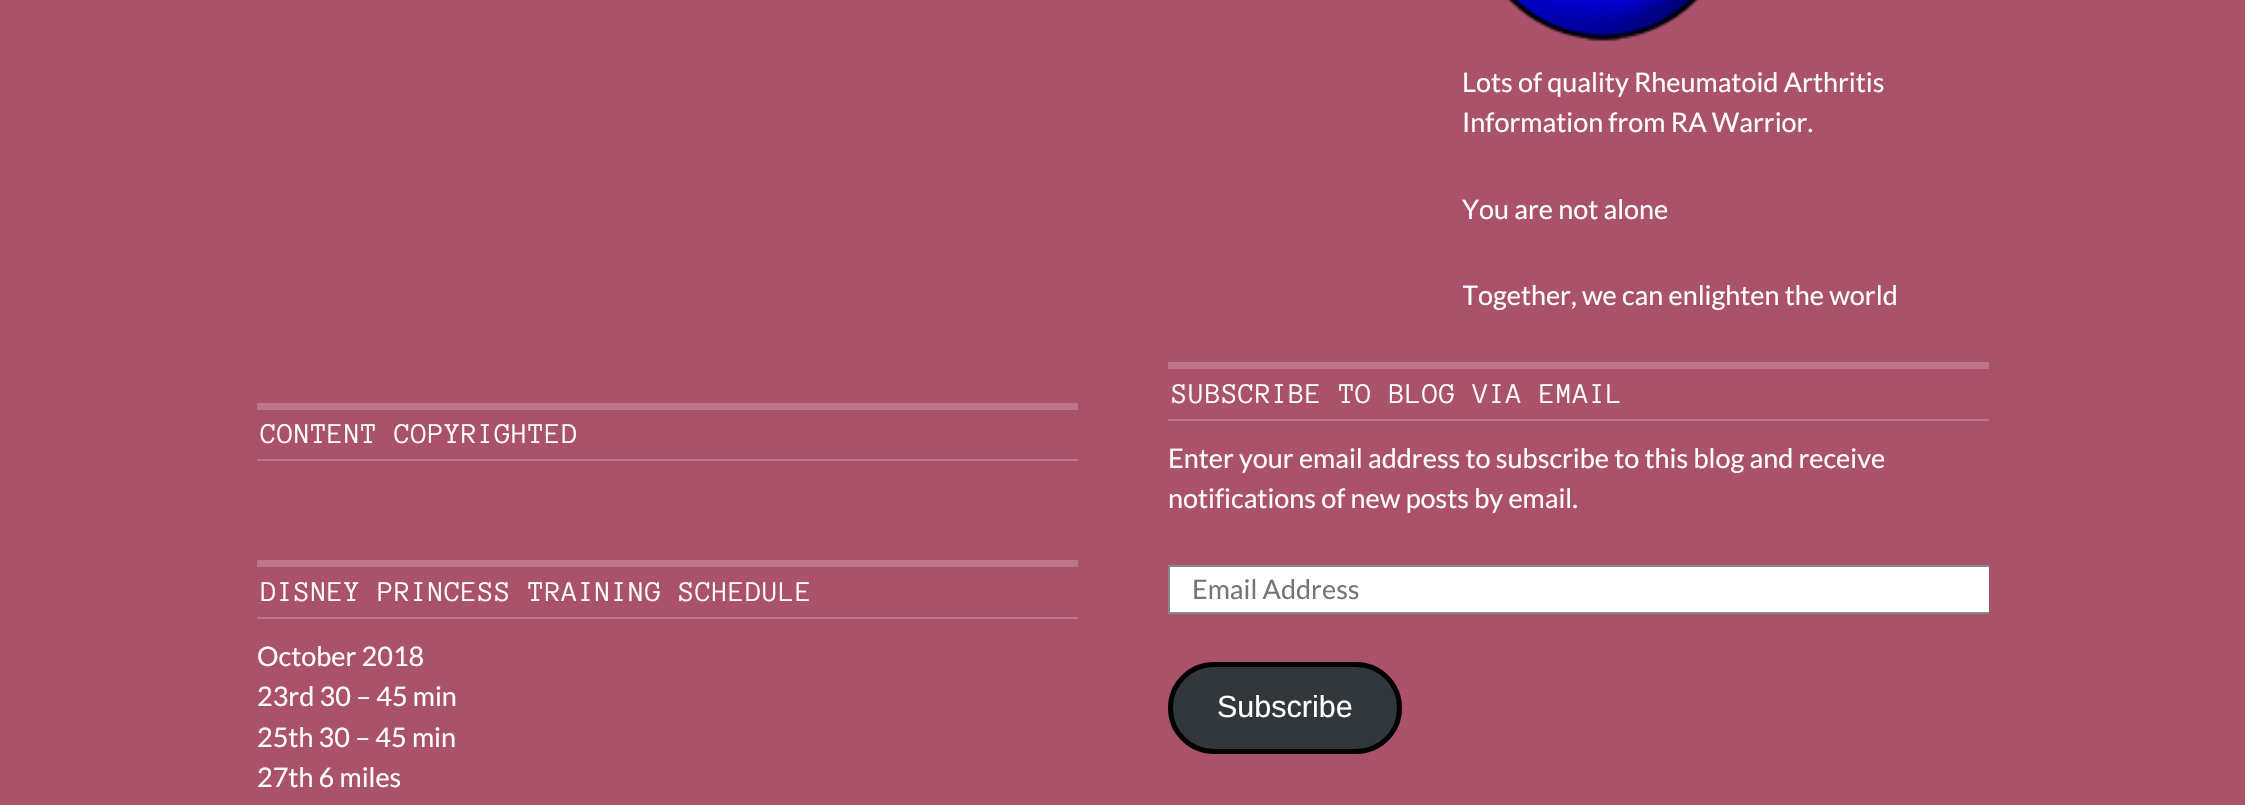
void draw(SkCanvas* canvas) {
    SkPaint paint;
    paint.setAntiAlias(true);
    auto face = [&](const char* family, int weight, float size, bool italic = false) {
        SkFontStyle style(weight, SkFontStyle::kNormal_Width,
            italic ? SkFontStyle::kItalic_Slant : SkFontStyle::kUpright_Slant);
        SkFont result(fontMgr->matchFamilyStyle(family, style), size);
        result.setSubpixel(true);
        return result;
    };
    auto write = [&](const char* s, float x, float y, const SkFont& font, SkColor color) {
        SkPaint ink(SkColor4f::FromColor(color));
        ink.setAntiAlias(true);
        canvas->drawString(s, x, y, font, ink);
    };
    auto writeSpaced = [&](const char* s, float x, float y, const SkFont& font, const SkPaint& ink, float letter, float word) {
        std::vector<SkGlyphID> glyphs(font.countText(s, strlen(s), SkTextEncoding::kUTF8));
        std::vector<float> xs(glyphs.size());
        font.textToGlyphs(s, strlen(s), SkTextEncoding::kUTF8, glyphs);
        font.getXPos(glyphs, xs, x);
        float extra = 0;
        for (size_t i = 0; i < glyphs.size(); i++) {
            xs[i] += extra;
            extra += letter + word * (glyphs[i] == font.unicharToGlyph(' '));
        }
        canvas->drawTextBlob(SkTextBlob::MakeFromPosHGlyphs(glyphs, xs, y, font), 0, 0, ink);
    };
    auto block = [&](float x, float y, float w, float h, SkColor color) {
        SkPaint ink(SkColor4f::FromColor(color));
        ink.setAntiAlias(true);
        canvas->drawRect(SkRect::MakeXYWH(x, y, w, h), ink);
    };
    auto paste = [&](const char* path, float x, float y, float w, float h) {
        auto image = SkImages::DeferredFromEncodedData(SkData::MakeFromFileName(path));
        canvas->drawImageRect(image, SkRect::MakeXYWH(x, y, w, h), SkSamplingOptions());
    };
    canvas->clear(SkColorSetRGB(171, 82, 107));
    paste("pic1.png", 1507, 0, 193, 42);
    auto kFont1 = face("Lato", 400, 27);
    write("Lots of quality Rheumatoid Arthritis", 1462, 92, kFont1, SK_ColorWHITE);
    write("Information from RA Warrior.", 1462, 132, kFont1, SK_ColorWHITE);
    write("You are not alone", 1462, 219, kFont1, SK_ColorWHITE);
    canvas->save();
    canvas->clipRect(SkRect::MakeXYWH(1463, 0, 526, 362));
    write("Together, we can enlighten the world", 1462, 305, kFont1, SK_ColorWHITE);
    canvas->restore();
    block(257, 403, 821, 7, SkColorSetRGB(188, 117, 137));
    block(257, 459, 821, 2, SkColorSetRGB(188, 117, 137));
    auto kFont2 = face("Anonymous Pro", 400, 29.25f);
    paint.setColor(SK_ColorWHITE);
    writeSpaced("CONTENT COPYRIGHTED", 261, 443, kFont2, paint, 0.75f, 0);
    block(257, 560, 821, 7, SkColorSetRGB(188, 117, 137));
    block(257, 617, 821, 2, SkColorSetRGB(188, 117, 137));
    writeSpaced("DISNEY PRINCESS TRAINING SCHEDULE", 261, 601, kFont2, paint, 0.75f, 0);
    write("October 2018", 257, 666, kFont1, SK_ColorWHITE);
    write("23rd 30 – 45 min", 257, 706, kFont1, SK_ColorWHITE);
    write("25th 30 – 45 min", 257, 747, kFont1, SK_ColorWHITE);
    write("27th 6 miles", 257, 787, kFont1, SK_ColorWHITE);
    block(1168, 362, 821, 7, SkColorSetRGB(188, 117, 137));
    block(1168, 419, 821, 2, SkColorSetRGB(188, 117, 137));
    writeSpaced("SUBSCRIBE TO BLOG VIA EMAIL", 1172, 403, kFont2, paint, 0.75f, 0);
    write("Enter your email address to subscribe to this blog and receive", 1168, 468, kFont1, SK_ColorWHITE);
    write("notifications of new posts by email.", 1168, 508, kFont1, SK_ColorWHITE);
    block(1170, 567, 819, 45, SK_ColorWHITE);
    canvas->save();
    canvas->clipRect(SkRect::MakeXYWH(1168, 362, 821, 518));
    paint.setStyle(SkPaint::kStroke_Style);
    paint.setStrokeWidth(2);
    paint.setColor(SkColorSetRGB(136, 136, 136));
    canvas->drawRect(SkRect::MakeXYWH(1169, 566, 828, 47), paint);
    canvas->restore();
    write("Email Address", 1192, 599, kFont1, SkColorSetRGB(117, 117, 117));
    paint.setStyle(SkPaint::kFill_Style);
    paint.setColor(SkColorSetRGB(50, 55, 60));
    canvas->drawRoundRect(SkRect::MakeXYWH(1170.5f, 664.5f, 229, 87), 43.5f, 43.5f, paint);
    paint.setStyle(SkPaint::kStroke_Style);
    paint.setStrokeWidth(5);
    paint.setColor(SK_ColorBLACK);
    canvas->drawRoundRect(SkRect::MakeXYWH(1170.5f, 664.5f, 229, 87), 43.5f, 43.5f, paint);
    auto kFont3 = face("Liberation Sans", 400, 30.5f);
    write("Subscribe", 1217, 717, kFont3, SK_ColorWHITE);
}
